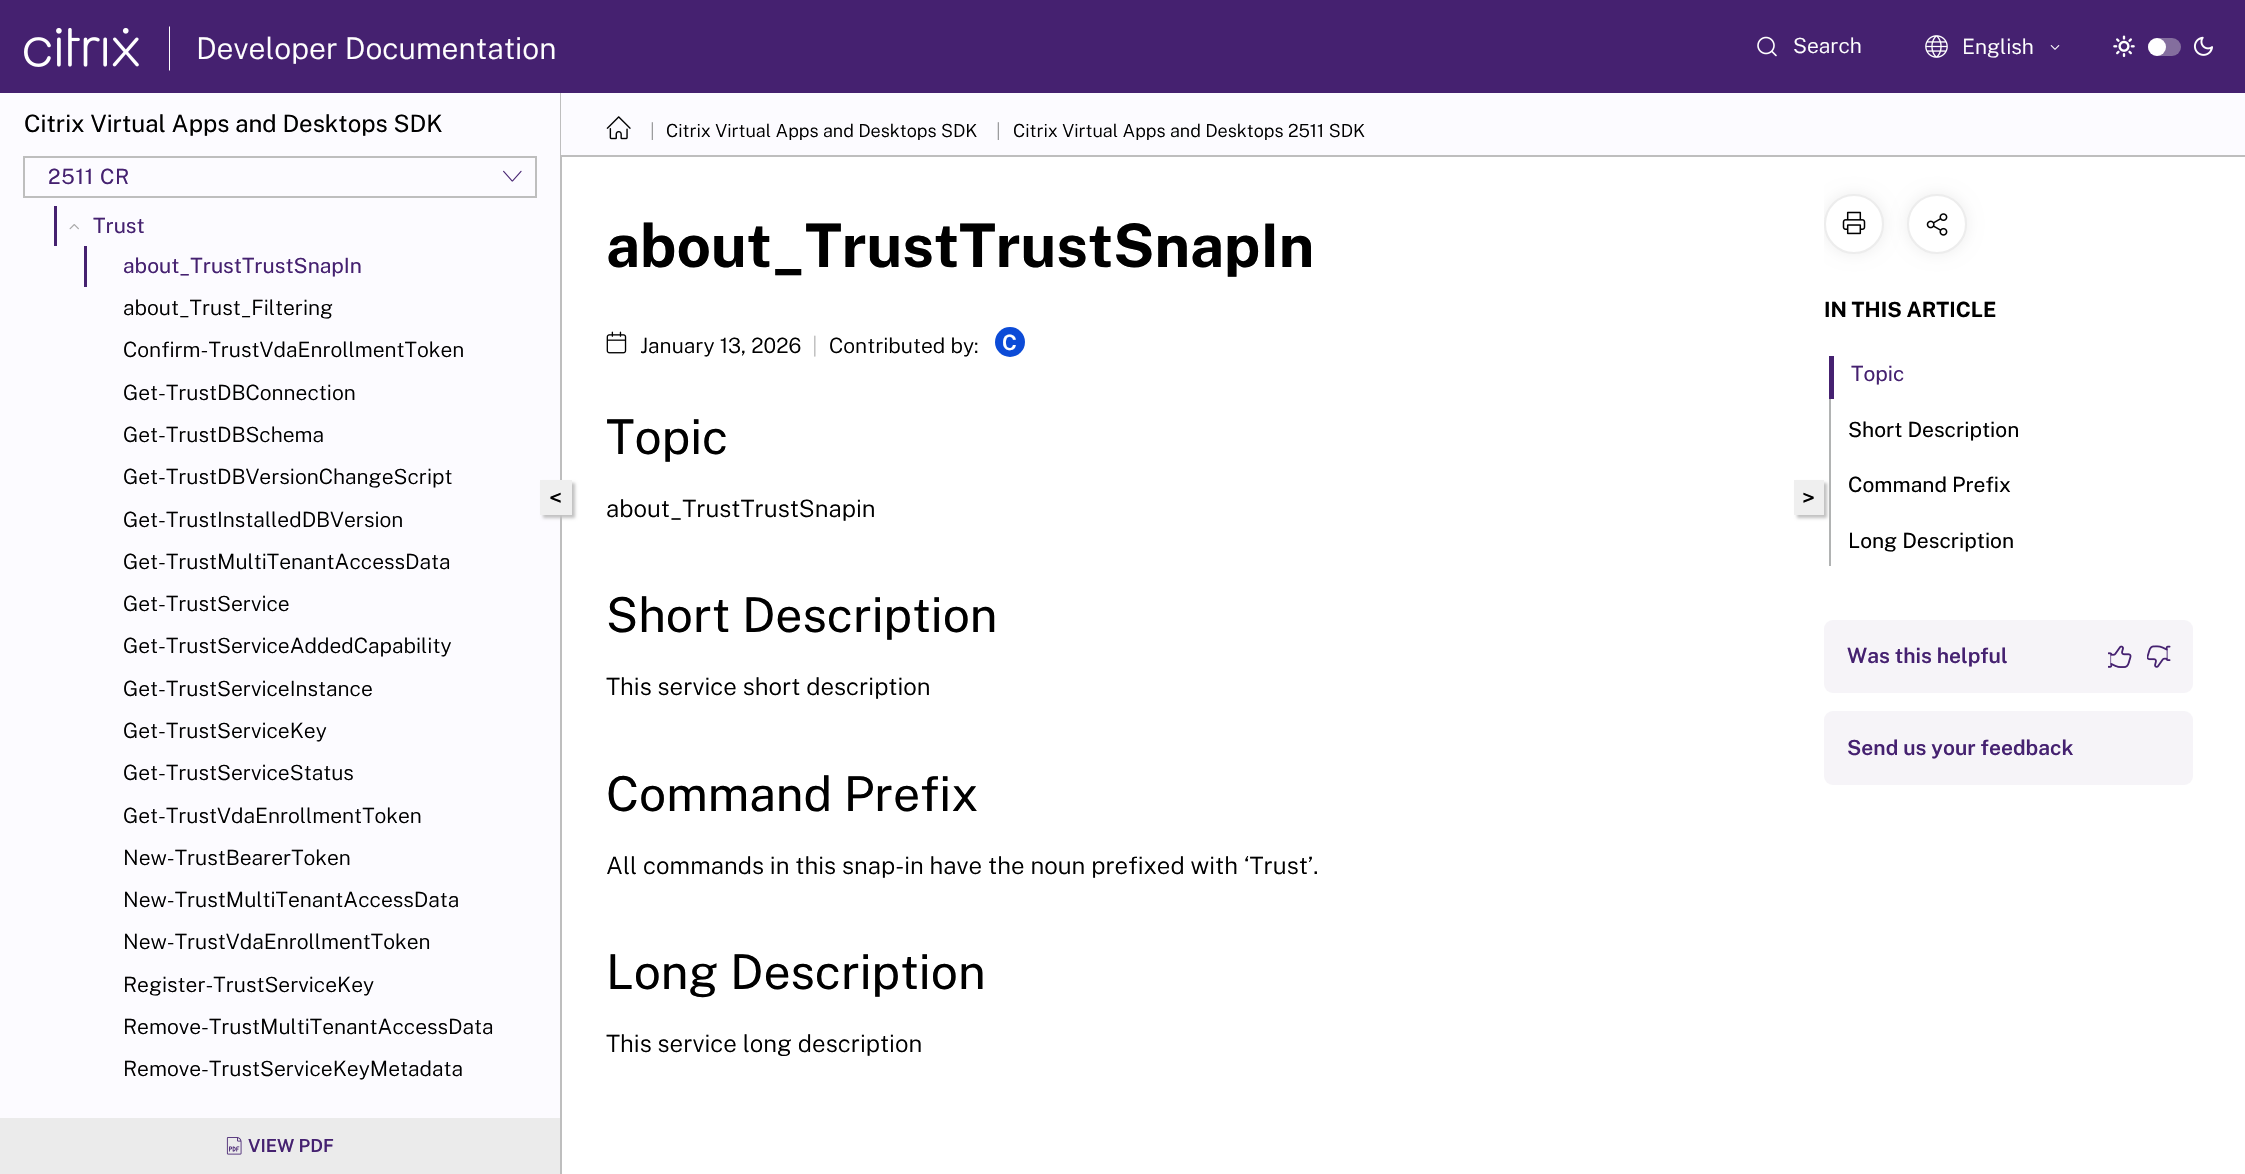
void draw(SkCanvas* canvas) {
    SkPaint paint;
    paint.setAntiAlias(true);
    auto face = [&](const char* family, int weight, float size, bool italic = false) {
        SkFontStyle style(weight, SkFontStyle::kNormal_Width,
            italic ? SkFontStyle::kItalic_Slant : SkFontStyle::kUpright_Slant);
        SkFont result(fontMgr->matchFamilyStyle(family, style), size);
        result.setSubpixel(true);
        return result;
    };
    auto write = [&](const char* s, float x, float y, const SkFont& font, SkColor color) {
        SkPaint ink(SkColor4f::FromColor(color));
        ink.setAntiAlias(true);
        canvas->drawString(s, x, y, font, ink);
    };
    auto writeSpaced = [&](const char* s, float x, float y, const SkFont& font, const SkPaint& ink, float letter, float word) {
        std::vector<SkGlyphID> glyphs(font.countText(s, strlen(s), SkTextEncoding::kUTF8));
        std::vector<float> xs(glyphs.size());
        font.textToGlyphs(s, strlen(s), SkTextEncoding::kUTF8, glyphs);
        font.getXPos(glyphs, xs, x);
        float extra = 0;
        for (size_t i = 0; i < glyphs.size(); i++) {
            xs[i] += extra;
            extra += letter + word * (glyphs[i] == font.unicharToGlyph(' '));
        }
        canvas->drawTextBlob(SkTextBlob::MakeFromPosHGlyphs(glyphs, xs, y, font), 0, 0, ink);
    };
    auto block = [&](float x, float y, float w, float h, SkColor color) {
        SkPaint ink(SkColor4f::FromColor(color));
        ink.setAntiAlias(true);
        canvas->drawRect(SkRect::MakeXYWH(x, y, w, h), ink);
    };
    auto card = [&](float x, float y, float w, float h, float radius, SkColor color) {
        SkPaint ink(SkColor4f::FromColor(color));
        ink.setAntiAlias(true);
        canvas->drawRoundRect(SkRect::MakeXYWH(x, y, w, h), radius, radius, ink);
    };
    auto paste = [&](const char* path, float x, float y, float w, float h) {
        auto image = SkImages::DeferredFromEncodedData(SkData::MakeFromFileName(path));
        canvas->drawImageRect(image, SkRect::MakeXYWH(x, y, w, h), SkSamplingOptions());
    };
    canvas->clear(SK_ColorWHITE);
    block(0, 0, 2245, 93, SkColorSetRGB(69, 33, 112));
    paste("pic1.png", 24, 27, 115, 40);
    paint.setColor(SK_ColorWHITE);
    canvas->drawPath(SkPathBuilder().moveTo(170, 26).lineTo(169, 27).lineTo(169, 70).lineTo(170, 71).lineTo(170, 70).lineTo(170, 27).close().detach(), paint);
    auto kFont1 = face("Public Sans", 300, 30);
    write("Developer Documentation", 196, 59, kFont1, SK_ColorWHITE);
    paste("pic2.png", 1757, 36, 20, 21);
    auto kFont2 = face("Public Sans", 300, 21);
    write("Search", 1793, 53, kFont2, SK_ColorWHITE);
    paste("pic3.png", 1925, 35, 23, 23);
    write("English", 1962, 54, kFont2, SK_ColorWHITE);
    paste("pic4.png", 2050, 45, 10, 5);
    paste("pic5.png", 2113, 35, 22, 23);
    card(2148, 38, 33, 18, 9, SkColorSetRGB(132, 110, 158));
    canvas->drawCircle(2157, 47, 9, paint);
    paste("pic6.png", 2193, 36, 20, 20);
    block(0, 93, 560, 1025, SkColorSetRGB(252, 251, 255));
    block(560, 93, 2, 1081, SkColorSetRGB(190, 190, 190));
    auto kFont3 = face("Public Sans", 400, 24);
    write("Citrix Virtual Apps and Desktops SDK", 24, 132, kFont3, SK_ColorBLACK);
    paint.setStyle(SkPaint::kStroke_Style);
    paint.setStrokeWidth(2);
    paint.setColor(SkColorSetRGB(190, 190, 190));
    canvas->drawRect(SkRect::MakeXYWH(24, 157, 512, 40), paint);
    auto kFont4 = face("Public Sans", 400, 21);
    paint.setStyle(SkPaint::kFill_Style);
    paint.setColor(SkColorSetRGB(69, 33, 112));
    writeSpaced("2511 CR", 48, 184, kFont4, paint, 0.75f, 0);
    paste("pic7.png", 503, 170, 19, 12);
    block(54, 206, 3, 40, SkColorSetRGB(69, 33, 112));
    paste("pic8.png", 69, 224, 10, 6);
    write("Trust", 93, 233, kFont4, SkColorSetRGB(69, 33, 112));
    block(84, 246, 3, 41, SkColorSetRGB(69, 33, 112));
    write("about_TrustTrustSnapIn", 123, 273, kFont4, SkColorSetRGB(69, 33, 112));
    write("about_Trust_Filtering", 123, 315, kFont2, SK_ColorBLACK);
    write("Confirm-TrustVdaEnrollmentToken", 123, 357, kFont2, SK_ColorBLACK);
    write("Get-TrustDBConnection", 123, 400, kFont2, SK_ColorBLACK);
    write("Get-TrustDBSchema", 123, 442, kFont2, SK_ColorBLACK);
    write("Get-TrustDBVersionChangeScript", 123, 484, kFont2, SK_ColorBLACK);
    write("Get-TrustInstalledDBVersion", 123, 527, kFont2, SK_ColorBLACK);
    write("Get-TrustMultiTenantAccessData", 123, 569, kFont2, SK_ColorBLACK);
    write("Get-TrustService", 123, 611, kFont2, SK_ColorBLACK);
    write("Get-TrustServiceAddedCapability", 123, 653, kFont2, SK_ColorBLACK);
    write("Get-TrustServiceInstance", 123, 696, kFont2, SK_ColorBLACK);
    write("Get-TrustServiceKey", 123, 738, kFont2, SK_ColorBLACK);
    write("Get-TrustServiceStatus", 123, 780, kFont2, SK_ColorBLACK);
    write("Get-TrustVdaEnrollmentToken", 123, 823, kFont2, SK_ColorBLACK);
    write("New-TrustBearerToken", 123, 865, kFont2, SK_ColorBLACK);
    write("New-TrustMultiTenantAccessData", 123, 907, kFont2, SK_ColorBLACK);
    write("New-TrustVdaEnrollmentToken", 123, 949, kFont2, SK_ColorBLACK);
    write("Register-TrustServiceKey", 123, 992, kFont2, SK_ColorBLACK);
    write("Remove-TrustMultiTenantAccessData", 123, 1034, kFont2, SK_ColorBLACK);
    write("Remove-TrustServiceKeyMetadata", 123, 1076, kFont2, SK_ColorBLACK);
    block(0, 1118, 560, 56, SkColorSetRGB(235, 235, 235));
    paste("pic9.png", 226, 1137, 16, 18);
    auto kFont5 = face("Public Sans", 600, 18);
    write("VIEW PDF", 248, 1152, kFont5, SkColorSetRGB(69, 33, 112));
    block(561, 93, 1684, 62, SkColorSetRGB(252, 251, 255));
    block(561, 155, 1684, 2, SkColorSetRGB(190, 190, 190));
    paste("pic10.png", 606, 116, 25, 24);
    auto kFont6 = face("Public Sans", 300, 18);
    write("|", 650, 137, kFont6, SkColorSetRGB(151, 151, 153));
    write("Citrix Virtual Apps and Desktops SDK", 666, 137, kFont6, SK_ColorBLACK);
    write("|", 996, 137, kFont6, SkColorSetRGB(151, 151, 153));
    write("Citrix Virtual Apps and Desktops 2511 SDK", 1013, 137, kFont6, SK_ColorBLACK);
    paint.setColor(SkColorSetRGB(193, 193, 193));
    paint.setMaskFilter(SkMaskFilter::MakeBlur(kNormal_SkBlurStyle, 1.5f));
    canvas->drawRect(SkRect::MakeXYWH(543, 483, 32, 35), paint);
    paint.setMaskFilter(nullptr);
    block(540, 480, 32, 35, SkColorSetRGB(239, 239, 239));
    write("<", 549, 506, kFont3, SK_ColorBLACK);
    auto kFont7 = face("Public Sans", 700, 60);
    write("about_TrustTrustSnapIn", 606, 267, kFont7, SK_ColorBLACK);
    paste("pic11.png", 606, 331, 21, 23);
    write("January 13, 2026", 640, 353, kFont2, SK_ColorBLACK);
    write("|", 812, 353, kFont2, SkColorSetRGB(190, 190, 190));
    write("Contributed by:", 829, 353, kFont2, SK_ColorBLACK);
    paint.setColor(SkColorSetRGB(12, 75, 215));
    canvas->drawCircle(1010, 342, 15, paint);
    auto kFont8 = face("Public Sans", 600, 21);
    write("C", 1002, 350, kFont8, SK_ColorWHITE);
    auto kFont9 = face("Public Sans", 400, 48);
    write("Topic", 606, 454, kFont9, SK_ColorBLACK);
    auto kFont10 = face("Public Sans", 300, 24);
    write("about_TrustTrustSnapin", 606, 517, kFont10, SK_ColorBLACK);
    write("Short Description", 606, 632, kFont9, SK_ColorBLACK);
    write("This service short description", 606, 695, kFont10, SK_ColorBLACK);
    write("Command Prefix", 606, 811, kFont9, SK_ColorBLACK);
    write("All commands in this snap-in have the noun prefixed with ‘Trust’.", 606, 874, kFont10, SK_ColorBLACK);
    write("Long Description", 606, 989, kFont9, SK_ColorBLACK);
    write("This service long description", 606, 1052, kFont10, SK_ColorBLACK);
    block(1829, 399, 2, 167, SkColorSetRGB(177, 179, 179));
    paint.setColor(SkColorSetRGB(193, 193, 193));
    paint.setMaskFilter(SkMaskFilter::MakeBlur(kNormal_SkBlurStyle, 1.5f));
    canvas->drawRect(SkRect::MakeXYWH(1797, 483, 30, 35), paint);
    paint.setMaskFilter(nullptr);
    block(1794, 480, 30, 35, SkColorSetRGB(239, 239, 239));
    write(">", 1802, 506, kFont3, SK_ColorBLACK);
    canvas->save();
    canvas->clipRect(SkRect::MakeXYWH(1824, 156, 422, 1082));
    paint.setColor(SkColorSetARGB(18, 0, 0, 0));
    paint.setMaskFilter(SkMaskFilter::MakeBlur(kNormal_SkBlurStyle, 7.5f));
    canvas->drawRoundRect(SkRect::MakeXYWH(1824, 194, 60, 60), 30, 30, paint);
    paint.setMaskFilter(nullptr);
    canvas->restore();
    paint.setColor(SK_ColorWHITE);
    canvas->drawCircle(1854, 224, 30, paint);
    paint.setStyle(SkPaint::kStroke_Style);
    paint.setColor(SkColorSetARGB(18, 0, 0, 0));
    canvas->drawCircle(1854, 224, 29, paint);
    paste("pic12.png", 1842, 211, 24, 24);
    paint.setStyle(SkPaint::kFill_Style);
    paint.setMaskFilter(SkMaskFilter::MakeBlur(kNormal_SkBlurStyle, 7.5f));
    canvas->drawRoundRect(SkRect::MakeXYWH(1907, 194, 60, 60), 30, 30, paint);
    paint.setMaskFilter(nullptr);
    paint.setColor(SK_ColorWHITE);
    canvas->drawCircle(1937, 224, 30, paint);
    paint.setStyle(SkPaint::kStroke_Style);
    paint.setColor(SkColorSetARGB(18, 0, 0, 0));
    canvas->drawCircle(1937, 224, 29, paint);
    paste("pic13.png", 1926, 213, 22, 23);
    auto kFont11 = face("Public Sans", 700, 21);
    write("IN THIS ARTICLE", 1824, 317, kFont11, SK_ColorBLACK);
    block(1829, 356, 5, 43, SkColorSetRGB(69, 33, 112));
    write("Topic", 1851, 381, kFont4, SkColorSetRGB(69, 33, 112));
    write("Short Description", 1848, 437, kFont4, SK_ColorBLACK);
    write("Command Prefix", 1848, 492, kFont4, SK_ColorBLACK);
    write("Long Description", 1848, 548, kFont4, SK_ColorBLACK);
    card(1824, 620, 369, 73, 9, SkColorSetRGB(246, 244, 248));
    write("Was this helpful", 1847, 663, kFont8, SkColorSetRGB(69, 33, 112));
    paste("pic14.png", 2108, 645, 24, 23);
    paste("pic15.png", 2147, 645, 24, 23);
    card(1824, 711, 369, 74, 9, SkColorSetRGB(246, 244, 248));
    write("Send us your feedback", 1847, 755, kFont8, SkColorSetRGB(69, 33, 112));
}
